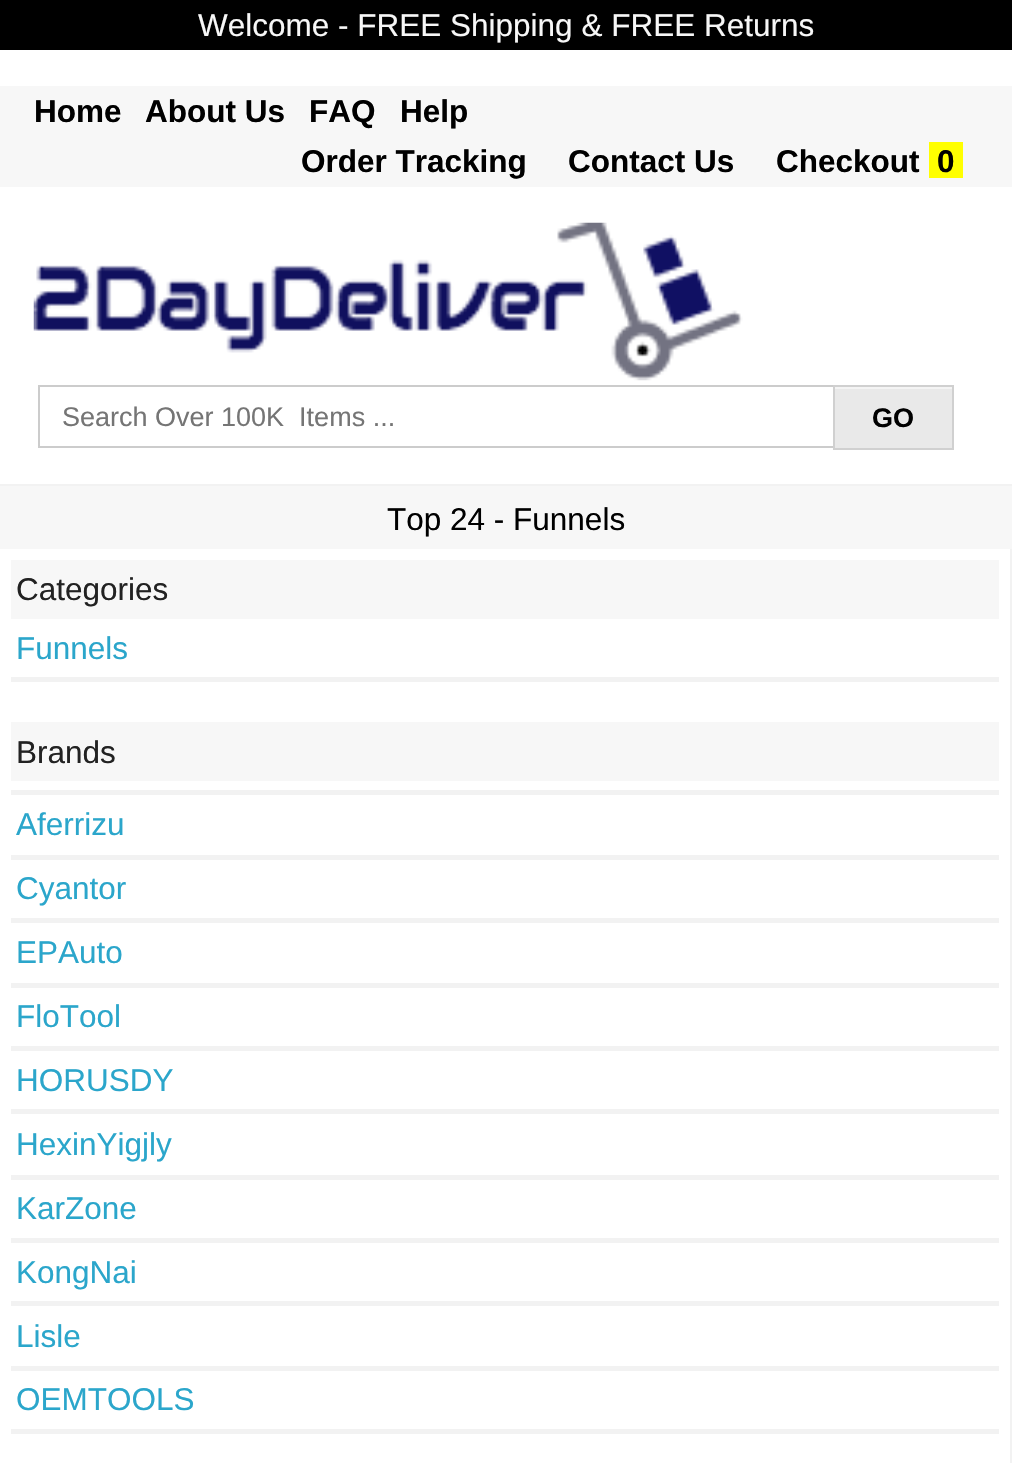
void draw(SkCanvas* canvas) {
    SkPaint paint;
    paint.setAntiAlias(true);
    auto face = [&](const char* family, int weight, float size, bool italic = false) {
        SkFontStyle style(weight, SkFontStyle::kNormal_Width,
            italic ? SkFontStyle::kItalic_Slant : SkFontStyle::kUpright_Slant);
        SkFont result(fontMgr->matchFamilyStyle(family, style), size);
        result.setSubpixel(true);
        return result;
    };
    auto write = [&](const char* s, float x, float y, const SkFont& font, SkColor color) {
        SkPaint ink(SkColor4f::FromColor(color));
        ink.setAntiAlias(true);
        canvas->drawString(s, x, y, font, ink);
    };
    auto block = [&](float x, float y, float w, float h, SkColor color) {
        SkPaint ink(SkColor4f::FromColor(color));
        ink.setAntiAlias(true);
        canvas->drawRect(SkRect::MakeXYWH(x, y, w, h), ink);
    };
    auto paste = [&](const char* path, float x, float y, float w, float h) {
        auto image = SkImages::DeferredFromEncodedData(SkData::MakeFromFileName(path));
        canvas->drawImageRect(image, SkRect::MakeXYWH(x, y, w, h), SkSamplingOptions());
    };
    canvas->clear(SK_ColorWHITE);
    block(0, 0, 1012, 50, SK_ColorBLACK);
    auto kFont1 = face("Liberation Sans", 400, 31.5f);
    write("Welcome - FREE Shipping & FREE Returns", 198, 36, kFont1, SkColorSetRGB(247, 247, 247));
    block(0, 86, 1012, 101, SkColorSetRGB(247, 247, 247));
    auto kFont2 = face("Liberation Sans", 700, 31.5f);
    write("Home", 34, 122, kFont2, SK_ColorBLACK);
    write("About Us", 145, 122, kFont2, SK_ColorBLACK);
    write("FAQ", 309, 122, kFont2, SK_ColorBLACK);
    write("Help", 400, 122, kFont2, SK_ColorBLACK);
    write("Order Tracking", 301, 172, kFont2, SK_ColorBLACK);
    write("Contact Us", 568, 172, kFont2, SK_ColorBLACK);
    write("Checkout", 776, 172, kFont2, SK_ColorBLACK);
    block(929, 142, 34, 36, SkColorSetRGB(255, 255, 0));
    write("0", 937, 172, kFont2, SK_ColorBLACK);
    paste("pic1.png", 33, 222, 710, 159);
    paint.setStyle(SkPaint::kStroke_Style);
    paint.setStrokeWidth(2);
    paint.setColor(SkColorSetRGB(204, 204, 204));
    canvas->drawRect(SkRect::MakeXYWH(39, 386, 795, 61), paint);
    auto kFont3 = face("Liberation Sans", 400, 27);
    write("Search Over 100K  Items ...", 62, 426, kFont3, SkColorSetRGB(117, 117, 117));
    block(835, 389, 117, 59, SkColorSetRGB(233, 233, 233));
    block(835, 387, 117, 2, SkColorSetRGB(244, 244, 244));
    paint.setColor(SkColorSetRGB(208, 208, 208));
    canvas->drawRect(SkRect::MakeXYWH(834, 386, 119, 63), paint);
    auto kFont4 = face("Liberation Sans", 700, 27);
    write("GO", 872, 427, kFont4, SK_ColorBLACK);
    block(0, 486, 1012, 63, SkColorSetRGB(247, 247, 247));
    block(0, 484, 1012, 2, SkColorSetRGB(242, 242, 242));
    write("Top 24 - Funnels", 387, 530, kFont1, SK_ColorBLACK);
    block(1010, 549, 2, 914, SkColorSetRGB(242, 242, 242));
    block(11, 560, 988, 59, SkColorSetRGB(247, 247, 247));
    write("Categories", 16, 600, kFont1, SkColorSetRGB(34, 34, 34));
    block(11, 677, 988, 5, SkColorSetRGB(242, 242, 242));
    write("Funnels", 16, 659, kFont1, SkColorSetRGB(43, 166, 203));
    block(11, 722, 988, 59, SkColorSetRGB(247, 247, 247));
    write("Brands", 16, 763, kFont1, SkColorSetRGB(34, 34, 34));
    block(11, 790, 988, 5, SkColorSetRGB(242, 242, 242));
    block(11, 855, 988, 5, SkColorSetRGB(242, 242, 242));
    write("Aferrizu", 16, 835, kFont1, SkColorSetRGB(43, 166, 203));
    block(11, 918, 988, 5, SkColorSetRGB(242, 242, 242));
    write("Cyantor", 16, 899, kFont1, SkColorSetRGB(43, 166, 203));
    block(11, 983, 988, 5, SkColorSetRGB(242, 242, 242));
    write("EPAuto", 16, 963, kFont1, SkColorSetRGB(43, 166, 203));
    block(11, 1046, 988, 5, SkColorSetRGB(242, 242, 242));
    write("FloTool", 16, 1027, kFont1, SkColorSetRGB(43, 166, 203));
    block(11, 1109, 988, 5, SkColorSetRGB(242, 242, 242));
    write("HORUSDY", 16, 1091, kFont1, SkColorSetRGB(43, 166, 203));
    block(11, 1175, 988, 5, SkColorSetRGB(242, 242, 242));
    write("HexinYigjly", 16, 1155, kFont1, SkColorSetRGB(43, 166, 203));
    block(11, 1238, 988, 5, SkColorSetRGB(242, 242, 242));
    write("KarZone", 16, 1219, kFont1, SkColorSetRGB(43, 166, 203));
    block(11, 1301, 988, 5, SkColorSetRGB(242, 242, 242));
    write("KongNai", 16, 1283, kFont1, SkColorSetRGB(43, 166, 203));
    block(11, 1366, 988, 5, SkColorSetRGB(242, 242, 242));
    write("Lisle", 16, 1347, kFont1, SkColorSetRGB(43, 166, 203));
    block(11, 1429, 988, 5, SkColorSetRGB(242, 242, 242));
    write("OEMTOOLS", 16, 1410, kFont1, SkColorSetRGB(43, 166, 203));
}
